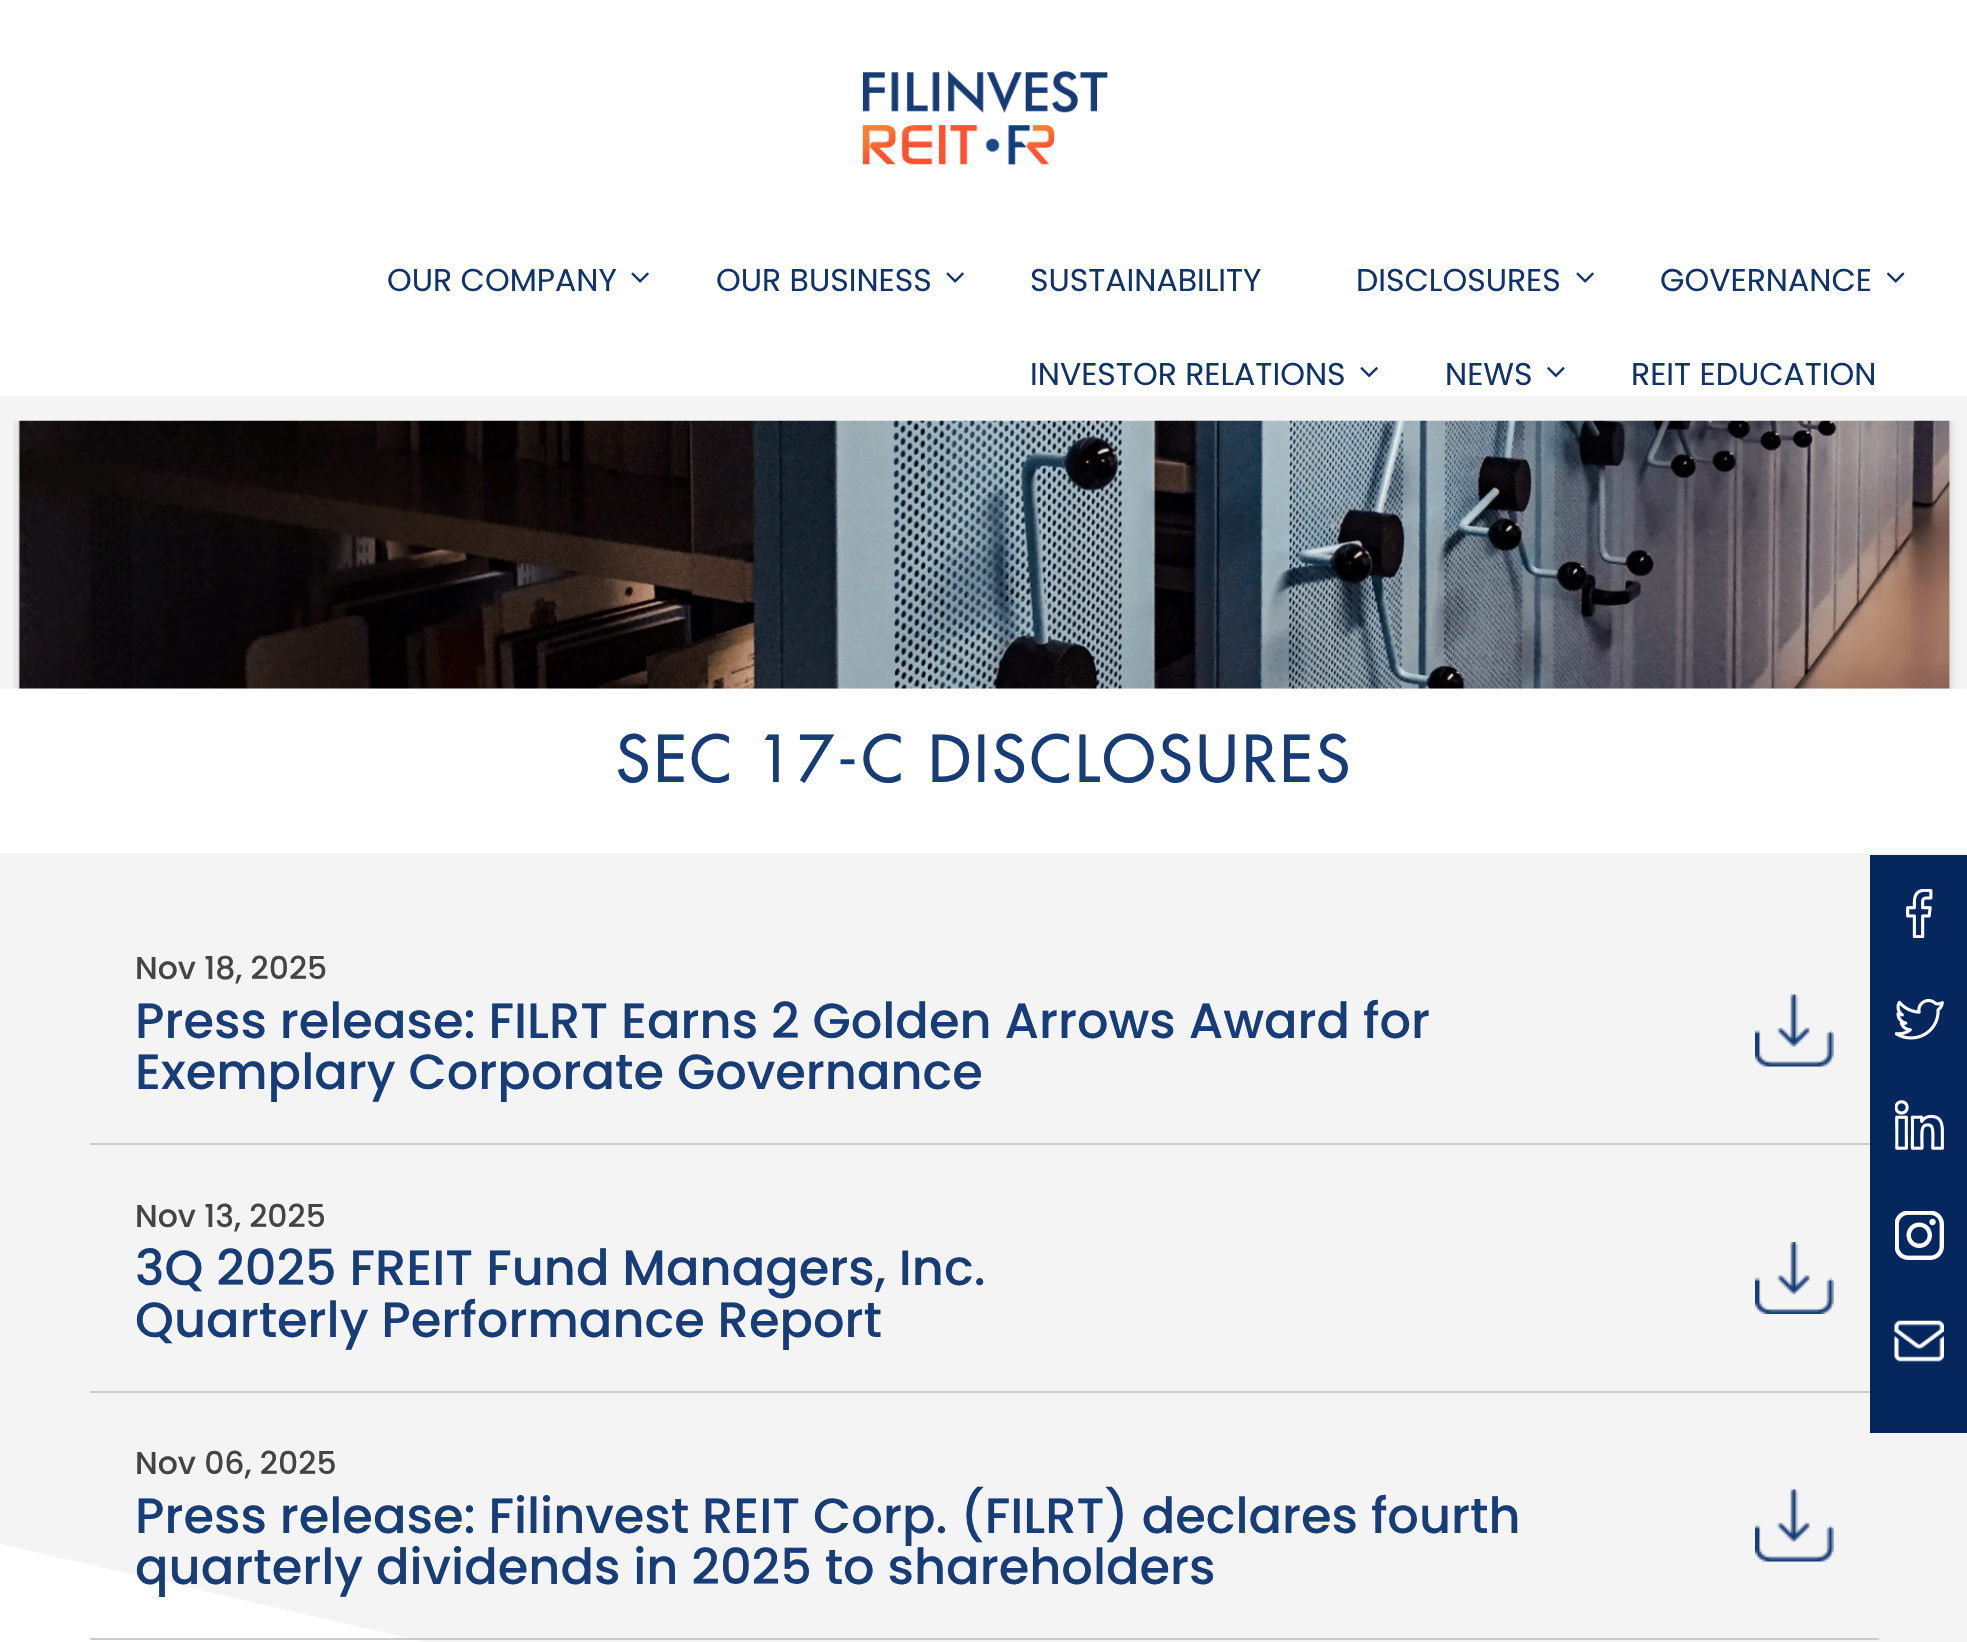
void draw(SkCanvas* canvas) {
    SkPaint paint;
    paint.setAntiAlias(true);
    auto face = [&](const char* family, int weight, float size, bool italic = false) {
        SkFontStyle style(weight, SkFontStyle::kNormal_Width,
            italic ? SkFontStyle::kItalic_Slant : SkFontStyle::kUpright_Slant);
        SkFont result(fontMgr->matchFamilyStyle(family, style), size);
        result.setSubpixel(true);
        return result;
    };
    auto write = [&](const char* s, float x, float y, const SkFont& font, SkColor color) {
        SkPaint ink(SkColor4f::FromColor(color));
        ink.setAntiAlias(true);
        canvas->drawString(s, x, y, font, ink);
    };
    auto writeSpaced = [&](const char* s, float x, float y, const SkFont& font, const SkPaint& ink, float letter, float word) {
        std::vector<SkGlyphID> glyphs(font.countText(s, strlen(s), SkTextEncoding::kUTF8));
        std::vector<float> xs(glyphs.size());
        font.textToGlyphs(s, strlen(s), SkTextEncoding::kUTF8, glyphs);
        font.getXPos(glyphs, xs, x);
        float extra = 0;
        for (size_t i = 0; i < glyphs.size(); i++) {
            xs[i] += extra;
            extra += letter + word * (glyphs[i] == font.unicharToGlyph(' '));
        }
        canvas->drawTextBlob(SkTextBlob::MakeFromPosHGlyphs(glyphs, xs, y, font), 0, 0, ink);
    };
    auto block = [&](float x, float y, float w, float h, SkColor color) {
        SkPaint ink(SkColor4f::FromColor(color));
        ink.setAntiAlias(true);
        canvas->drawRect(SkRect::MakeXYWH(x, y, w, h), ink);
    };
    auto paste = [&](const char* path, float x, float y, float w, float h) {
        auto image = SkImages::DeferredFromEncodedData(SkData::MakeFromFileName(path));
        canvas->drawImageRect(image, SkRect::MakeXYWH(x, y, w, h), SkSamplingOptions());
    };
    canvas->clear(SK_ColorWHITE);
    paste("pic1.png", 862, 70, 246, 95);
    auto kFont1 = face("Poppins", 400, 31.5f);
    write("OUR COMPANY", 387, 291, kFont1, SkColorSetRGB(17, 51, 106));
    paste("pic2.png", 631, 272, 18, 11);
    write("OUR BUSINESS", 716, 291, kFont1, SkColorSetRGB(17, 51, 106));
    paste("pic2.png", 946, 272, 18, 11);
    write("SUSTAINABILITY", 1030, 291, kFont1, SkColorSetRGB(17, 51, 106));
    write("DISCLOSURES", 1356, 291, kFont1, SkColorSetRGB(17, 51, 106));
    paste("pic2.png", 1576, 272, 18, 11);
    write("GOVERNANCE", 1660, 291, kFont1, SkColorSetRGB(17, 51, 106));
    paste("pic3.png", 1886, 272, 19, 11);
    write("INVESTOR RELATIONS", 1030, 385, kFont1, SkColorSetRGB(17, 51, 106));
    paste("pic4.png", 1360, 367, 18, 11);
    write("NEWS", 1445, 385, kFont1, SkColorSetRGB(17, 51, 106));
    paste("pic5.png", 1547, 367, 18, 11);
    write("REIT EDUCATION", 1631, 385, kFont1, SkColorSetRGB(17, 51, 106));
    {
        const SkColor colors[] = {SkColorSetRGB(244, 244, 244), SK_ColorWHITE};
        const float stops[] = {0.58f, 0.58f};
        const SkPoint ends[] = {{1201, 675}, {768, 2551}};
        paint.setShader(SkGradientShader::MakeLinear(ends, colors, stops, 2, SkTileMode::kClamp));
        paint.setAlpha(255);
    }
    canvas->drawRect(SkRect::MakeXYWH(0, 853, 1967, 789), paint);
    block(1870, 855, 97, 578, SkColorSetRGB(5, 39, 93));
    paste("pic6.png", 1906, 889, 27, 49);
    paste("pic7.png", 1895, 999, 49, 41);
    paste("pic8.png", 1895, 1100, 49, 50);
    paste("pic9.png", 1895, 1211, 49, 49);
    paste("pic10.png", 1894, 1320, 50, 42);
    block(0, 396, 1967, 293, SkColorSetRGB(244, 244, 244));
    paste("pic11.png", 13, 420, 1943, 269);
    auto kFont2 = face("Futura", 500, 63);
    paint.setShader(nullptr);
    paint.setColor(SkColorSetRGB(23, 60, 118));
    writeSpaced("SEC 17-C DISCLOSURES", 616, 782, kFont2, paint, 3.6f, 0);
    block(90, 1143, 1780, 2, SkColorSetRGB(204, 204, 204));
    auto kFont3 = face("Poppins", 500, 31.5f);
    write("Nov 18, 2025", 135, 979, kFont3, SkColorSetRGB(68, 68, 68));
    auto kFont4 = face("Poppins", 500, 49.5f);
    write("Press release: FILRT Earns 2 Golden Arrows Award for", 135, 1038, kFont4, SkColorSetRGB(23, 60, 118));
    write("Exemplary Corporate Governance", 135, 1089, kFont4, SkColorSetRGB(23, 60, 118));
    paste("pic12.png", 1755, 994, 79, 73);
    block(90, 1391, 1780, 2, SkColorSetRGB(204, 204, 204));
    write("Nov 13, 2025", 135, 1227, kFont3, SkColorSetRGB(68, 68, 68));
    write("3Q 2025 FREIT Fund Managers, Inc.", 135, 1285, kFont4, SkColorSetRGB(23, 60, 118));
    write("Quarterly Performance Report", 135, 1337, kFont4, SkColorSetRGB(23, 60, 118));
    paste("pic13.png", 1755, 1242, 79, 72);
    block(90, 1638, 1789, 2, SkColorSetRGB(204, 204, 204));
    write("Nov 06, 2025", 135, 1474, kFont3, SkColorSetRGB(68, 68, 68));
    write("Press release: Filinvest REIT Corp. (FILRT) declares fourth", 135, 1533, kFont4, SkColorSetRGB(23, 60, 118));
    write("quarterly dividends in 2025 to shareholders", 135, 1584, kFont4, SkColorSetRGB(23, 60, 118));
    paste("pic12.png", 1755, 1489, 79, 73);
}
